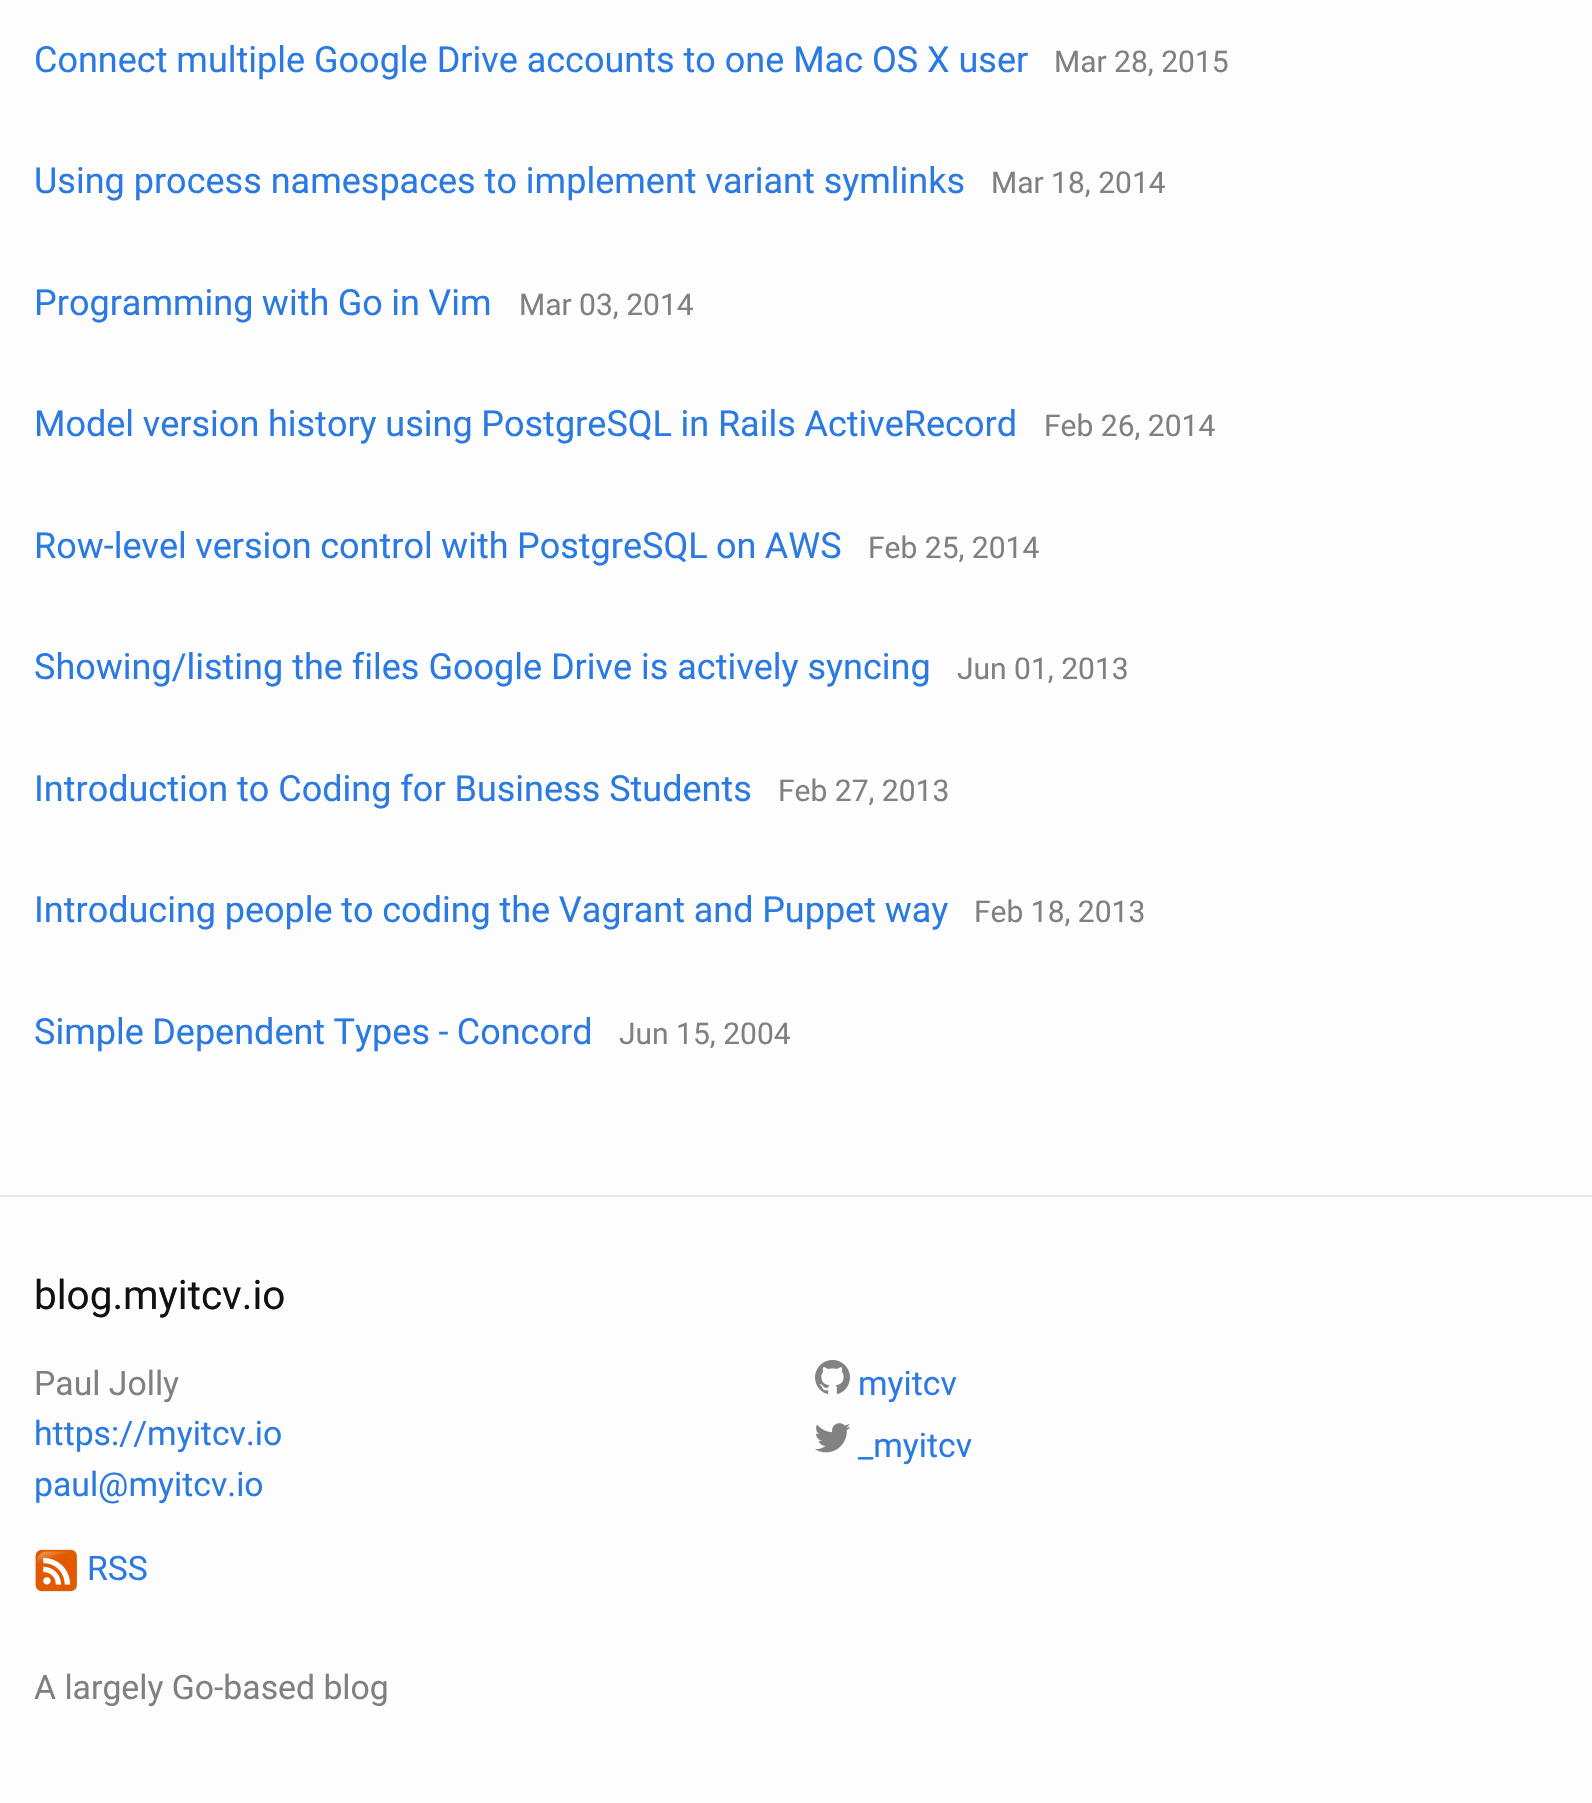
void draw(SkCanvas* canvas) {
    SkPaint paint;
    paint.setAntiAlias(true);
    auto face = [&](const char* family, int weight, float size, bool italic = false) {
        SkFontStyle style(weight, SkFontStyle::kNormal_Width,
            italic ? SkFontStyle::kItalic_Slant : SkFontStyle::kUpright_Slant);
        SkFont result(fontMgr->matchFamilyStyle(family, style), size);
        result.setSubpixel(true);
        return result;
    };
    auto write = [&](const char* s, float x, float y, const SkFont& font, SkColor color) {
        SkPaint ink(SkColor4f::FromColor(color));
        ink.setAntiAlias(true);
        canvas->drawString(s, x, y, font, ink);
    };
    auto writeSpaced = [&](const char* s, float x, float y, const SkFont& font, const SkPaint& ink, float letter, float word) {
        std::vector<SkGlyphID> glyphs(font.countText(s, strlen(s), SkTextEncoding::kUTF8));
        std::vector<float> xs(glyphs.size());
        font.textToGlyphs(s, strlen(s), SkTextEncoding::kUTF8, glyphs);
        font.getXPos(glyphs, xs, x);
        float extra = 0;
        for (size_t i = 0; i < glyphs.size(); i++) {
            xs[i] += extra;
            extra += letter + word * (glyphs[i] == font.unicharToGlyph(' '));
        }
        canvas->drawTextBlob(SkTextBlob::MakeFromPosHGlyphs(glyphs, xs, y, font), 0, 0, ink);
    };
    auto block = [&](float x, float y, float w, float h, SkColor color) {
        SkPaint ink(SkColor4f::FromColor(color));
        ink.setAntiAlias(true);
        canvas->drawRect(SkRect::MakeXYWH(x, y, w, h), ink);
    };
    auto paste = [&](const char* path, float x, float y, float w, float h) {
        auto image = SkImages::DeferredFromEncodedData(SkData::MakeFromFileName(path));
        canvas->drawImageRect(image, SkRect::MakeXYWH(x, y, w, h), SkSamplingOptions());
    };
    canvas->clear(SkColorSetRGB(253, 253, 253));
    auto kFont1 = face("Roboto", 400, 36);
    write("Connect multiple Google Drive accounts to one Mac OS X user", 34, 72, kFont1, SkColorSetRGB(42, 122, 226));
    auto kFont2 = face("Roboto", 400, 30);
    write("Mar 28, 2015", 1054, 72, kFont2, SkColorSetRGB(128, 128, 128));
    write("Using process namespaces to implement variant symlinks", 34, 193, kFont1, SkColorSetRGB(42, 122, 226));
    write("Mar 18, 2014", 991, 193, kFont2, SkColorSetRGB(128, 128, 128));
    paint.setColor(SkColorSetRGB(42, 122, 226));
    writeSpaced("Programming with Go in Vim", 34, 315, kFont1, paint, 0, -0.5f);
    write("Mar 03, 2014", 519, 315, kFont2, SkColorSetRGB(128, 128, 128));
    writeSpaced("Model version history using PostgreSQL in Rails ActiveRecord", 34, 436, kFont1, paint, 0, -0.25f);
    write("Feb 26, 2014", 1044, 436, kFont2, SkColorSetRGB(128, 128, 128));
    writeSpaced("Row-level version control with PostgreSQL on AWS", 34, 558, kFont1, paint, 0, -0.5f);
    write("Feb 25, 2014", 868, 558, kFont2, SkColorSetRGB(128, 128, 128));
    write("Showing/listing the files Google Drive is actively syncing", 34, 679, kFont1, SkColorSetRGB(42, 122, 226));
    write("Jun 01, 2013", 957, 679, kFont2, SkColorSetRGB(128, 128, 128));
    write("Introduction to Coding for Business Students", 34, 801, kFont1, SkColorSetRGB(42, 122, 226));
    write("Feb 27, 2013", 778, 801, kFont2, SkColorSetRGB(128, 128, 128));
    writeSpaced("Introducing people to coding the Vagrant and Puppet way", 34, 922, kFont1, paint, 0, -0.25f);
    write("Feb 18, 2013", 974, 922, kFont2, SkColorSetRGB(128, 128, 128));
    writeSpaced("Simple Dependent Types - Concord", 34, 1044, kFont1, paint, 0, -0.5f);
    write("Jun 15, 2004", 619, 1044, kFont2, SkColorSetRGB(128, 128, 128));
    block(0, 1195, 1592, 2, SkColorSetRGB(232, 232, 232));
    auto kFont3 = face("Roboto", 400, 40.5f);
    write("blog.myitcv.io", 34, 1309, kFont3, SkColorSetRGB(17, 17, 17));
    auto kFont4 = face("Roboto", 400, 33.75f);
    write("Paul Jolly", 34, 1395, kFont4, SkColorSetRGB(128, 128, 128));
    write("https://myitcv.io", 34, 1445, kFont4, SkColorSetRGB(42, 122, 226));
    write("paul@myitcv.io", 34, 1496, kFont4, SkColorSetRGB(42, 122, 226));
    paste("pic1.png", 35, 1549, 42, 43);
    write("RSS", 87, 1580, kFont4, SkColorSetRGB(42, 122, 226));
    paste("pic2.png", 815, 1360, 35, 34);
    write("myitcv", 858, 1395, kFont4, SkColorSetRGB(42, 122, 226));
    paste("pic3.png", 815, 1423, 36, 30);
    write("_myitcv", 858, 1457, kFont4, SkColorSetRGB(42, 122, 226));
    write("A largely Go-based blog", 34, 1699, kFont4, SkColorSetRGB(128, 128, 128));
}
